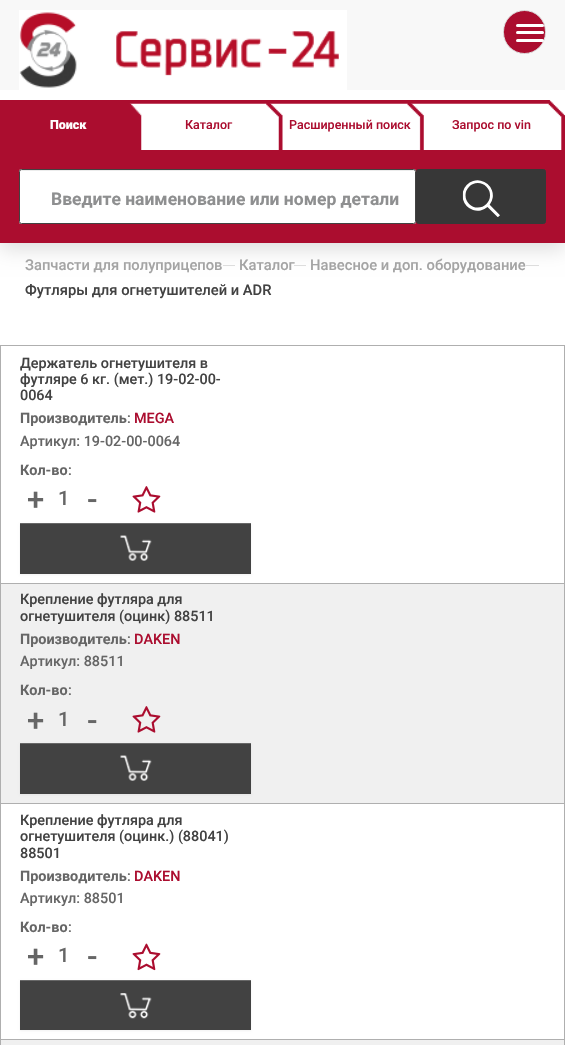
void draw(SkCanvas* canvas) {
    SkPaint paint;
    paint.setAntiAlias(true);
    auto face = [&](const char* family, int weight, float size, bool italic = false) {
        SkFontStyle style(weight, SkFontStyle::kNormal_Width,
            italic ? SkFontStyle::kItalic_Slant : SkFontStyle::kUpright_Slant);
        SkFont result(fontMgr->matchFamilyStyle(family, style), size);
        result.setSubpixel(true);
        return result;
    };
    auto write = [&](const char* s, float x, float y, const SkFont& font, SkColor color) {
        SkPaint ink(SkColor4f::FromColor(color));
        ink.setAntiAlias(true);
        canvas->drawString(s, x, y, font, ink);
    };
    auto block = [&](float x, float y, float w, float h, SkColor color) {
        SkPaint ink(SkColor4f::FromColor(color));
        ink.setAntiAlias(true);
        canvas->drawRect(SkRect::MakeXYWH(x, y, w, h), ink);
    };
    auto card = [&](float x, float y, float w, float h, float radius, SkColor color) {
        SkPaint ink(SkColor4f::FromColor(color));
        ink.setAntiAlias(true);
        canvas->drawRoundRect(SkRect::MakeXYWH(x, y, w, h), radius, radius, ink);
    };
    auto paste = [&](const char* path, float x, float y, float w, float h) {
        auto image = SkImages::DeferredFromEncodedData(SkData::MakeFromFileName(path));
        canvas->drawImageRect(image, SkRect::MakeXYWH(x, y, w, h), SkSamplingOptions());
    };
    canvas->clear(SK_ColorWHITE);
    block(0, 0, 565, 90, SkColorSetRGB(248, 248, 248));
    paste("pic1.png", 19, 10, 328, 80);
    paint.setColor(SkColorSetRGB(171, 13, 47));
    canvas->drawRoundRect(SkRect::MakeXYWH(503.5f, 10.5f, 42, 43), 21, 21, paint);
    paint.setStyle(SkPaint::kStroke_Style);
    paint.setStrokeWidth(1);
    paint.setColor(SkColorSetRGB(221, 221, 221));
    canvas->drawRoundRect(SkRect::MakeXYWH(503.5f, 10.5f, 42, 43), 21, 21, paint);
    card(516, 24, 28, 3, 1.5f, SK_ColorWHITE);
    card(516, 31, 28, 3, 1.5f, SK_ColorWHITE);
    card(516, 39, 28, 3, 1.5f, SK_ColorWHITE);
    paint.setStyle(SkPaint::kFill_Style);
    paint.setMaskFilter(SkMaskFilter::MakeBlur(kNormal_SkBlurStyle, 9.5f));
    canvas->drawRect(SkRect::MakeXYWH(0, 156, 565, 93), paint);
    paint.setMaskFilter(nullptr);
    paste("pic5.png", 408, 100, 157, 50);
    paste("pic4.png", 267, 100, 157, 50);
    paste("pic3.png", 127, 100, 156, 50);
    paste("pic2.png", 0, 100, 142, 50);
    auto kFont1 = face("Roboto", 900, 12.5f);
    write("Поиск", 50, 129, kFont1, SK_ColorWHITE);
    auto kFont2 = face("Roboto", 500, 12.5f);
    write("Каталог", 185, 129, kFont2, SkColorSetRGB(171, 13, 47));
    write("Расширенный поиск", 289, 129, kFont2, SkColorSetRGB(171, 13, 47));
    write("Запрос по vin", 452, 129, kFont2, SkColorSetRGB(171, 13, 47));
    block(0, 150, 565, 93, SkColorSetRGB(171, 13, 47));
    card(19, 169, 397, 55, 2.5f, SK_ColorWHITE);
    paint.setColor(SkColorSetRGB(236, 236, 236));
    canvas->drawPath(SkPathBuilder().moveTo(21, 171).lineTo(414, 171).lineTo(415, 172).lineTo(415, 171).lineTo(414, 170).lineTo(20, 170).lineTo(20, 172).close().detach(), paint);
    paint.setStyle(SkPaint::kStroke_Style);
    paint.setColor(SkColorSetRGB(66, 66, 66));
    canvas->drawRoundRect(SkRect::MakeXYWH(19.5f, 169.5f, 396, 54), 2, 2, paint);
    auto kFont3 = face("Roboto", 700, 17.5f);
    write("Введите наименование или номер детали", 51, 205, kFont3, SkColorSetRGB(142, 143, 144));
    paint.setStyle(SkPaint::kFill_Style);
    paint.setColor(SkColorSetRGB(55, 55, 55));
    canvas->drawRoundRect(SkRect::MakeXYWH(416.5f, 169.5f, 129, 54), 2, 2, paint);
    paint.setStyle(SkPaint::kStroke_Style);
    canvas->drawRoundRect(SkRect::MakeXYWH(416.5f, 169.5f, 129, 54), 2, 2, paint);
    paste("pic6.png", 462, 180, 38, 37);
    auto kFont4 = face("Roboto", 500, 14.75f);
    write("Запчасти для полуприцепов", 25, 270, kFont4, SkColorSetRGB(164, 164, 164));
    block(223, 265, 12, 1, SkColorSetRGB(221, 221, 221));
    write("Каталог", 239, 270, kFont4, SkColorSetRGB(164, 164, 164));
    block(294, 265, 12, 1, SkColorSetRGB(221, 221, 221));
    write("Навесное и доп. оборудование", 310, 270, kFont4, SkColorSetRGB(164, 164, 164));
    block(526, 265, 13, 1, SkColorSetRGB(221, 221, 221));
    write("Футляры для огнетушителей и ADR", 25, 295, kFont4, SkColorSetRGB(66, 66, 66));
    block(0, 345, 565, 1, SkColorSetRGB(175, 175, 175));
    block(0, 583, 565, 1, SkColorSetRGB(175, 175, 175));
    block(0, 803, 565, 1, SkColorSetRGB(175, 175, 175));
    block(0, 1039, 565, 1, SkColorSetRGB(175, 175, 175));
    block(1, 1040, 564, 5, SkColorSetRGB(240, 240, 240));
    block(564, 1039, 1, 6, SkColorSetRGB(175, 175, 175));
    block(564, 803, 1, 237, SkColorSetRGB(175, 175, 175));
    block(564, 583, 1, 221, SkColorSetRGB(175, 175, 175));
    block(564, 345, 1, 239, SkColorSetRGB(175, 175, 175));
    block(0, 1039, 1, 6, SkColorSetRGB(175, 175, 175));
    block(0, 803, 1, 237, SkColorSetRGB(175, 175, 175));
    block(0, 583, 1, 221, SkColorSetRGB(175, 175, 175));
    block(0, 345, 1, 239, SkColorSetRGB(175, 175, 175));
    auto kFont5 = face("Roboto", 500, 14.4f);
    write("Держатель огнетушителя в", 20, 368, kFont5, SkColorSetRGB(66, 66, 66));
    write("футляре 6 кг. (мет.) 19-02-00-", 20, 384, kFont5, SkColorSetRGB(66, 66, 66));
    write("0064", 20, 400, kFont5, SkColorSetRGB(66, 66, 66));
    auto kFont6 = face("Roboto", 700, 14.4f);
    write("Производитель", 20, 423, kFont6, SkColorSetRGB(102, 102, 102));
    write(":", 127, 423, kFont5, SkColorSetRGB(102, 102, 102));
    write("MEGA", 134, 423, kFont5, SkColorSetRGB(171, 13, 47));
    write("Артикул: 19-02-00-0064", 20, 446, kFont5, SkColorSetRGB(102, 102, 102));
    write("Кол-во", 20, 475, kFont6, SkColorSetRGB(102, 102, 102));
    write(":", 68, 475, kFont5, SkColorSetRGB(102, 102, 102));
    auto kFont7 = face("Roboto", 500, 31);
    write("+", 27, 510, kFont7, SkColorSetRGB(102, 102, 102));
    auto kFont8 = face("Roboto", 500, 20);
    write("1", 58, 505, kFont8, SkColorSetRGB(102, 102, 102));
    write("-", 87, 510, kFont7, SkColorSetRGB(102, 102, 102));
    paste("pic7.png", 132, 486, 29, 27);
    paint.setStyle(SkPaint::kFill_Style);
    paint.setColor(SkColorSetARGB(13, 0, 0, 0));
    paint.setMaskFilter(SkMaskFilter::MakeBlur(kNormal_SkBlurStyle, 1));
    canvas->drawRect(SkRect::MakeXYWH(20, 524, 231, 51), paint);
    paint.setMaskFilter(nullptr);
    block(20, 524, 231, 50, SkColorSetRGB(66, 66, 66));
    block(20, 523, 231, 1, SkColorSetRGB(104, 104, 104));
    paste("pic8.png", 120, 535, 32, 26);
    block(1, 584, 563, 219, SkColorSetRGB(240, 240, 240));
    write("Крепление футляра для", 20, 604, kFont5, SkColorSetRGB(66, 66, 66));
    write("огнетушителя (оцинк) 88511", 20, 621, kFont5, SkColorSetRGB(66, 66, 66));
    write("Производитель", 20, 644, kFont6, SkColorSetRGB(102, 102, 102));
    write(":", 127, 644, kFont5, SkColorSetRGB(102, 102, 102));
    write("DAKEN", 134, 644, kFont5, SkColorSetRGB(171, 13, 47));
    write("Артикул: 88511", 20, 666, kFont5, SkColorSetRGB(102, 102, 102));
    write("Кол-во", 20, 695, kFont6, SkColorSetRGB(102, 102, 102));
    write(":", 68, 695, kFont5, SkColorSetRGB(102, 102, 102));
    write("+", 27, 731, kFont7, SkColorSetRGB(102, 102, 102));
    write("1", 58, 726, kFont8, SkColorSetRGB(102, 102, 102));
    write("-", 87, 731, kFont7, SkColorSetRGB(102, 102, 102));
    paste("pic9.png", 132, 706, 29, 27);
    paint.setMaskFilter(SkMaskFilter::MakeBlur(kNormal_SkBlurStyle, 1));
    canvas->drawRect(SkRect::MakeXYWH(20, 744, 231, 51), paint);
    paint.setMaskFilter(nullptr);
    block(20, 744, 231, 50, SkColorSetRGB(66, 66, 66));
    block(20, 743, 231, 1, SkColorSetRGB(104, 104, 104));
    paste("pic8.png", 120, 755, 32, 26);
    write("Крепление футляра для", 20, 825, kFont5, SkColorSetRGB(66, 66, 66));
    write("огнетушителя (оцинк.) (88041)", 20, 841, kFont5, SkColorSetRGB(66, 66, 66));
    write("88501", 20, 858, kFont5, SkColorSetRGB(66, 66, 66));
    write("Производитель", 20, 881, kFont6, SkColorSetRGB(102, 102, 102));
    write(":", 127, 881, kFont5, SkColorSetRGB(102, 102, 102));
    write("DAKEN", 134, 881, kFont5, SkColorSetRGB(171, 13, 47));
    write("Артикул: 88501", 20, 903, kFont5, SkColorSetRGB(102, 102, 102));
    write("Кол-во", 20, 932, kFont6, SkColorSetRGB(102, 102, 102));
    write(":", 68, 932, kFont5, SkColorSetRGB(102, 102, 102));
    write("+", 27, 967, kFont7, SkColorSetRGB(102, 102, 102));
    write("1", 58, 962, kFont8, SkColorSetRGB(102, 102, 102));
    write("-", 87, 967, kFont7, SkColorSetRGB(102, 102, 102));
    paste("pic10.png", 132, 943, 29, 28);
    paint.setMaskFilter(SkMaskFilter::MakeBlur(kNormal_SkBlurStyle, 1));
    canvas->drawRect(SkRect::MakeXYWH(20, 981, 231, 50), paint);
    paint.setMaskFilter(nullptr);
    block(20, 981, 231, 49, SkColorSetRGB(66, 66, 66));
    block(20, 980, 231, 1, SkColorSetRGB(104, 104, 104));
    paste("pic11.png", 120, 993, 32, 26);
}
